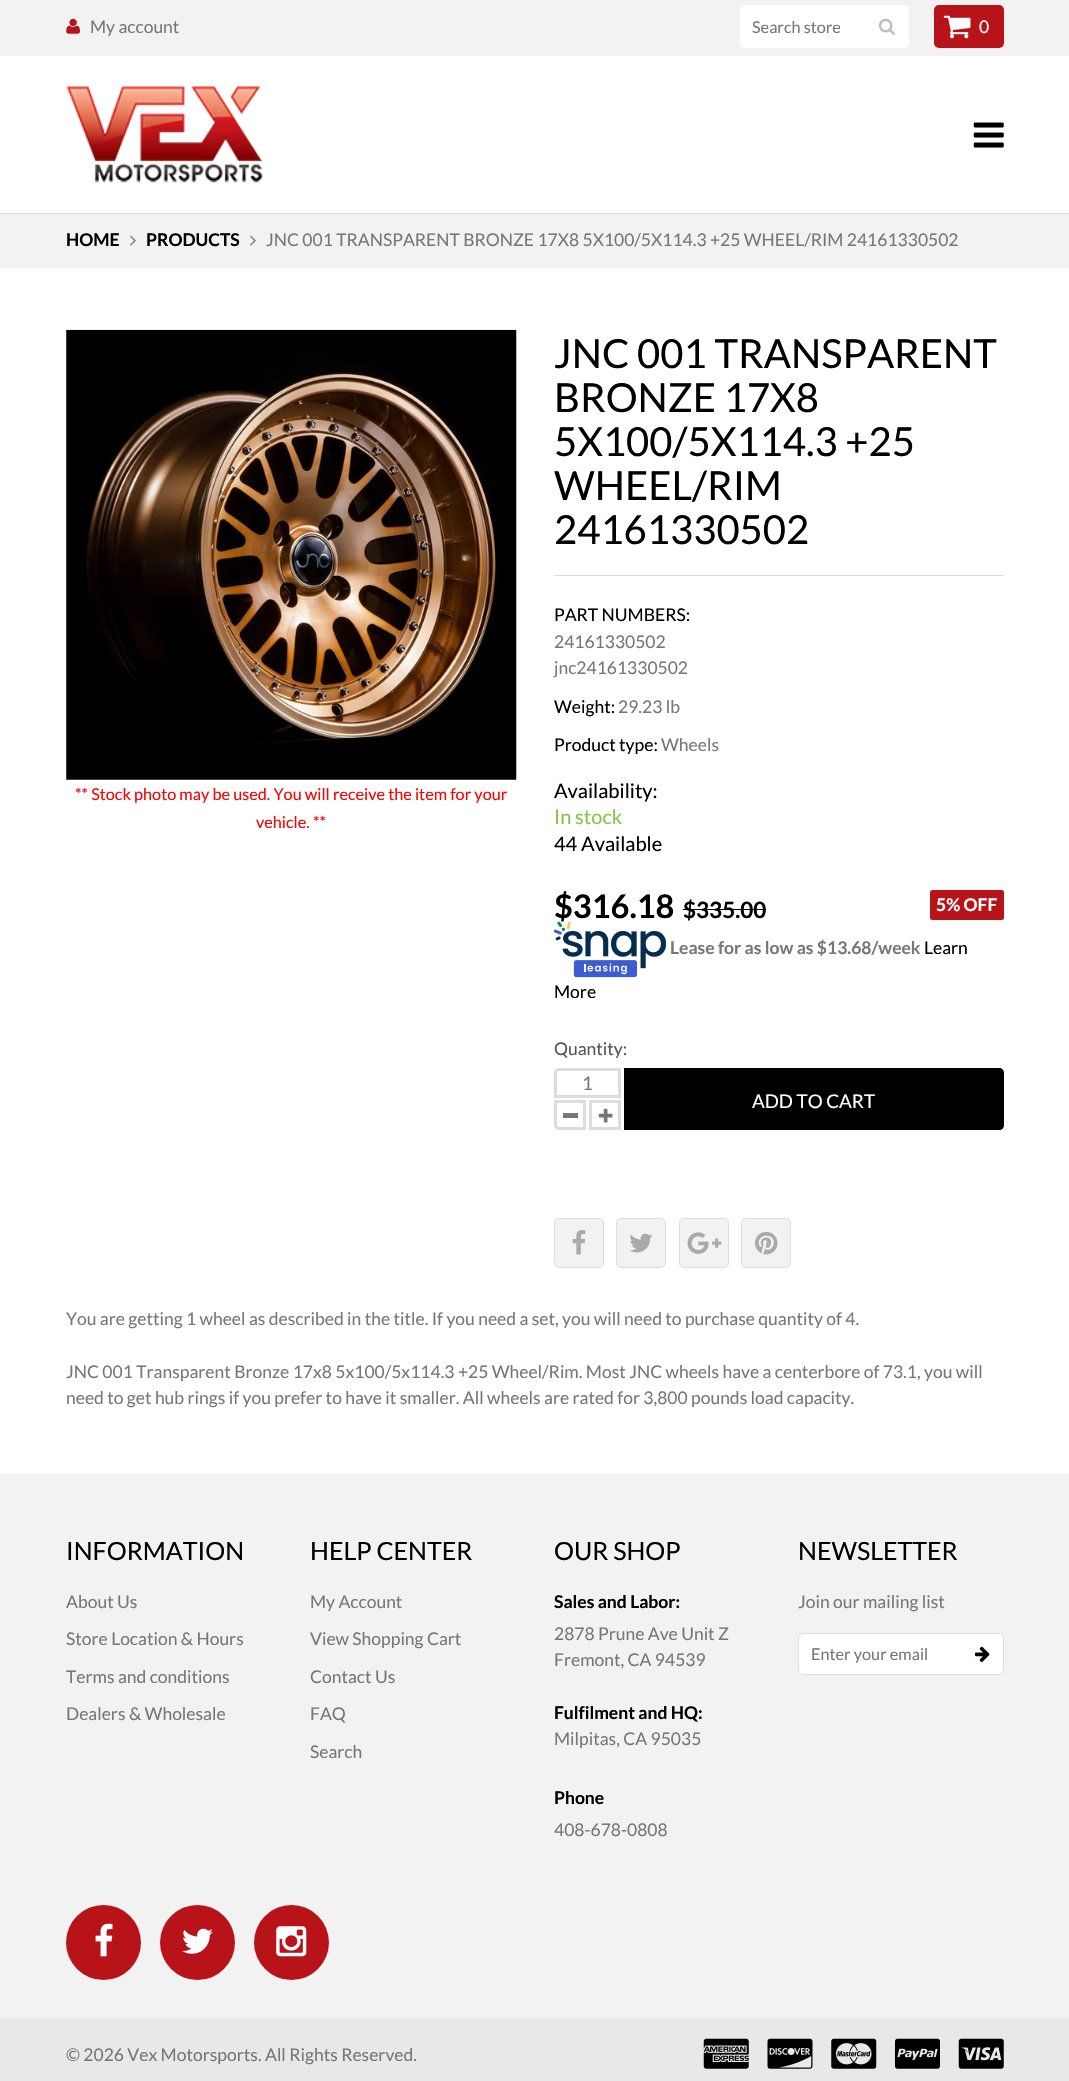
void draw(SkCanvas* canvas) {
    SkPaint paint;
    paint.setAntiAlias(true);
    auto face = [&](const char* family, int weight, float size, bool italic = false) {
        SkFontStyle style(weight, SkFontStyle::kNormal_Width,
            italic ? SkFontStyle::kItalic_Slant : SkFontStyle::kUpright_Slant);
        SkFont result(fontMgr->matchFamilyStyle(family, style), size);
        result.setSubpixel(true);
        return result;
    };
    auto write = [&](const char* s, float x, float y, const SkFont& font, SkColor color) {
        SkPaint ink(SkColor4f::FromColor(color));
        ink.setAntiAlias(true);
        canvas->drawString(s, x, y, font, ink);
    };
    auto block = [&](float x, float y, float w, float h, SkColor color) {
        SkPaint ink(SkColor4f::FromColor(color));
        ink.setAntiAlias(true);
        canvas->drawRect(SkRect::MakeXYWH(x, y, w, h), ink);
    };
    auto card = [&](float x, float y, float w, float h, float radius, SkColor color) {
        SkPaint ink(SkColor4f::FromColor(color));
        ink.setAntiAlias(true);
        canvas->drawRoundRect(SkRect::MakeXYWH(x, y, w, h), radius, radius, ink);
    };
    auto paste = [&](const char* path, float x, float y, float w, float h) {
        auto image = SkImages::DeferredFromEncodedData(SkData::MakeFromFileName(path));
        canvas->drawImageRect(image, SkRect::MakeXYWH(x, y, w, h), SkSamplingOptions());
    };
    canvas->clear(SK_ColorWHITE);
    block(0, 0, 1069, 56, SkColorSetRGB(242, 242, 242));
    paste("pic1.png", 66, 18, 14, 16);
    auto kFont1 = face("Lato", 400, 17.5f);
    write("My account", 90, 33, kFont1, SkColorSetRGB(119, 119, 119));
    card(740, 5, 169, 43, 5, SK_ColorWHITE);
    auto kFont2 = face("Lato", 400, 16.25f);
    write("Search store", 752, 33, kFont2, SkColorSetRGB(119, 119, 119));
    paste("pic2.png", 878, 18, 17, 17);
    card(934, 5, 70, 43, 5, SkColorSetRGB(184, 19, 25));
    paste("pic3.png", 943, 15, 28, 24);
    write("0", 979, 33, kFont1, SK_ColorWHITE);
    block(0, 213, 1069, 1, SkColorSetRGB(221, 221, 221));
    paste("pic4.png", 66, 86, 197, 97);
    paste("pic5.png", 973, 122, 31, 26);
    block(0, 214, 1069, 54, SkColorSetRGB(242, 242, 242));
    auto kFont3 = face("Lato", 700, 17.5f);
    write("HOME", 66, 246, kFont3, SK_ColorBLACK);
    paste("pic6.png", 130, 235, 6, 11);
    write("PRODUCTS", 146, 246, kFont3, SK_ColorBLACK);
    paste("pic6.png", 250, 235, 6, 11);
    write("JNC 001 TRANSPARENT BRONZE 17X8 5X100/5X114.3 +25 WHEEL/RIM 24161330502", 266, 246, kFont1, SkColorSetRGB(119, 119, 119));
    paste("pic7.png", 66, 329, 451, 451);
    write("** Stock photo may be used. You will receive the item for your", 75, 800, kFont2, SkColorSetRGB(255, 0, 0));
    write("vehicle. **", 256, 828, kFont2, SkColorSetRGB(255, 0, 0));
    auto kFont4 = face("Lato", 400, 40);
    write("JNC 001 TRANSPARENT", 554, 368, kFont4, SK_ColorBLACK);
    write("BRONZE 17X8", 554, 412, kFont4, SK_ColorBLACK);
    write("5X100/5X114.3 +25", 554, 456, kFont4, SK_ColorBLACK);
    write("WHEEL/RIM", 554, 500, kFont4, SK_ColorBLACK);
    write("24161330502", 554, 544, kFont4, SK_ColorBLACK);
    block(554, 575, 450, 1, SkColorSetRGB(221, 221, 221));
    write("PART NUMBERS:", 554, 621, kFont1, SK_ColorBLACK);
    write("24161330502", 554, 648, kFont1, SkColorSetRGB(119, 119, 119));
    write("jnc24161330502", 554, 674, kFont1, SkColorSetRGB(119, 119, 119));
    write("Weight:", 554, 713, kFont1, SK_ColorBLACK);
    write("29.23 lb", 618, 713, kFont1, SkColorSetRGB(119, 119, 119));
    write("Product type:", 554, 751, kFont1, SK_ColorBLACK);
    write("Wheels", 661, 751, kFont1, SkColorSetRGB(119, 119, 119));
    auto kFont5 = face("Lato", 400, 20);
    write("Availability:", 554, 798, kFont5, SK_ColorBLACK);
    write("In stock", 554, 824, kFont5, SkColorSetRGB(139, 195, 74));
    write("44 Available", 554, 851, kFont5, SK_ColorBLACK);
    paste("pic8.png", 554, 921, 112, 57);
    auto kFont6 = face("Lato", 700, 32.5f);
    write("$316.18", 554, 918, kFont6, SK_ColorBLACK);
    auto kFont7 = face("Lato", 700, 22.5f);
    write("$335.00", 683, 918, kFont7, SK_ColorBLACK);
    block(683, 909, 83, 1, SK_ColorBLACK);
    card(930, 890, 74, 30, 2.5f, SkColorSetRGB(184, 19, 25));
    write("5% OFF", 936, 911, kFont3, SK_ColorWHITE);
    write("Lease for as low as $13.68/week", 670, 954, kFont3, SkColorSetRGB(119, 119, 119));
    write("Learn", 924, 954, kFont1, SK_ColorBLACK);
    write("More", 554, 998, kFont1, SK_ColorBLACK);
    write("Quantity:", 554, 1055, kFont1, SkColorSetRGB(85, 85, 85));
    paint.setStyle(SkPaint::kStroke_Style);
    paint.setStrokeWidth(3);
    paint.setColor(SkColorSetRGB(221, 221, 221));
    canvas->drawPath(SkPathBuilder().moveTo(559, 1069.5f).lineTo(619.5f, 1069.5f).lineTo(619.5f, 1096.5f).lineTo(555.5f, 1096.5f).lineTo(555.5f, 1073).cubicTo(555.5f, 1071, 557, 1069.5f, 559, 1069.5f).close().detach(), paint);
    auto kFont8 = face("Lato", 400, 18.75f);
    write("1", 582, 1090, kFont8, SkColorSetRGB(119, 119, 119));
    canvas->drawPath(SkPathBuilder().moveTo(555.5f, 1101.5f).lineTo(584.5f, 1101.5f).lineTo(584.5f, 1128.5f).lineTo(559, 1128.5f).cubicTo(557, 1128.5f, 555.5f, 1127, 555.5f, 1125).close().detach(), paint);
    block(563, 1113, 15, 5, SkColorSetRGB(119, 119, 119));
    canvas->drawRect(SkRect::MakeXYWH(590.5f, 1101.5f, 29, 27), paint);
    paste("pic9.png", 598, 1108, 15, 15);
    paint.setStyle(SkPaint::kFill_Style);
    paint.setColor(SK_ColorBLACK);
    canvas->drawPath(SkPathBuilder().moveTo(624, 1068).lineTo(999, 1068).cubicTo(1002, 1068, 1004, 1070, 1004, 1073).lineTo(1004, 1125).cubicTo(1004, 1128, 1002, 1130, 999, 1130).lineTo(624, 1130).close().detach(), paint);
    write("ADD TO CART", 752, 1108, kFont8, SK_ColorWHITE);
    paint.setColor(SkColorSetRGB(242, 242, 242));
    canvas->drawRoundRect(SkRect::MakeXYWH(554.5f, 1218.5f, 49, 49), 4.5f, 4.5f, paint);
    paint.setStyle(SkPaint::kStroke_Style);
    paint.setStrokeWidth(1);
    paint.setColor(SkColorSetRGB(221, 221, 221));
    canvas->drawRoundRect(SkRect::MakeXYWH(554.5f, 1218.5f, 49, 49), 4.5f, 4.5f, paint);
    paste("pic10.png", 572, 1230, 14, 25);
    paint.setStyle(SkPaint::kFill_Style);
    paint.setColor(SkColorSetRGB(242, 242, 242));
    canvas->drawRoundRect(SkRect::MakeXYWH(616.5f, 1218.5f, 49, 49), 4.5f, 4.5f, paint);
    paint.setStyle(SkPaint::kStroke_Style);
    paint.setColor(SkColorSetRGB(221, 221, 221));
    canvas->drawRoundRect(SkRect::MakeXYWH(616.5f, 1218.5f, 49, 49), 4.5f, 4.5f, paint);
    paste("pic11.png", 629, 1233, 24, 20);
    paint.setStyle(SkPaint::kFill_Style);
    paint.setColor(SkColorSetRGB(242, 242, 242));
    canvas->drawRoundRect(SkRect::MakeXYWH(679.5f, 1218.5f, 49, 49), 4.5f, 4.5f, paint);
    paint.setStyle(SkPaint::kStroke_Style);
    paint.setColor(SkColorSetRGB(221, 221, 221));
    canvas->drawRoundRect(SkRect::MakeXYWH(679.5f, 1218.5f, 49, 49), 4.5f, 4.5f, paint);
    paste("pic12.png", 687, 1232, 35, 22);
    paint.setStyle(SkPaint::kFill_Style);
    paint.setColor(SkColorSetRGB(242, 242, 242));
    canvas->drawRoundRect(SkRect::MakeXYWH(741.5f, 1218.5f, 49, 49), 4.5f, 4.5f, paint);
    paint.setStyle(SkPaint::kStroke_Style);
    paint.setColor(SkColorSetRGB(221, 221, 221));
    canvas->drawRoundRect(SkRect::MakeXYWH(741.5f, 1218.5f, 49, 49), 4.5f, 4.5f, paint);
    paste("pic13.png", 755, 1231, 23, 24);
    write("You are getting 1 wheel as described in the title. If you need a set, you will need to purchase quantity of 4.", 66, 1325, kFont1, SkColorSetRGB(119, 119, 119));
    write("JNC 001 Transparent Bronze 17x8 5x100/5x114.3 +25 Wheel/Rim. Most JNC wheels have a centerbore of 73.1, you will", 66, 1378, kFont1, SkColorSetRGB(119, 119, 119));
    write("need to get hub rings if you prefer to have it smaller. All wheels are rated for 3,800 pounds load capacity.", 66, 1404, kFont1, SkColorSetRGB(119, 119, 119));
    block(0, 1474, 1069, 544, SkColorSetRGB(242, 242, 242));
    auto kFont9 = face("Lato", 400, 25);
    write("INFORMATION", 66, 1560, kFont9, SK_ColorBLACK);
    write("About Us", 66, 1608, kFont1, SkColorSetRGB(119, 119, 119));
    write("Store Location & Hours", 66, 1645, kFont1, SkColorSetRGB(119, 119, 119));
    write("Terms and conditions", 66, 1683, kFont1, SkColorSetRGB(119, 119, 119));
    write("Dealers & Wholesale", 66, 1720, kFont1, SkColorSetRGB(119, 119, 119));
    write("HELP CENTER", 310, 1560, kFont9, SK_ColorBLACK);
    write("My Account", 310, 1608, kFont1, SkColorSetRGB(119, 119, 119));
    write("View Shopping Cart", 310, 1645, kFont1, SkColorSetRGB(119, 119, 119));
    write("Contact Us", 310, 1683, kFont1, SkColorSetRGB(119, 119, 119));
    write("FAQ", 310, 1720, kFont1, SkColorSetRGB(119, 119, 119));
    write("Search", 310, 1758, kFont1, SkColorSetRGB(119, 119, 119));
    write("OUR SHOP", 554, 1560, kFont9, SK_ColorBLACK);
    write("Sales and Labor:", 554, 1608, kFont3, SK_ColorBLACK);
    write("2878 Prune Ave Unit Z", 554, 1640, kFont1, SkColorSetRGB(119, 119, 119));
    write("Fremont, CA 94539", 554, 1666, kFont1, SkColorSetRGB(119, 119, 119));
    write("Fulfilment and HQ:", 554, 1719, kFont3, SK_ColorBLACK);
    write("Milpitas, CA 95035", 554, 1745, kFont1, SkColorSetRGB(119, 119, 119));
    write("Phone", 554, 1804, kFont3, SK_ColorBLACK);
    write("408-678-0808", 554, 1836, kFont1, SkColorSetRGB(119, 119, 119));
    write("NEWSLETTER", 798, 1560, kFont9, SK_ColorBLACK);
    write("Join our mailing list", 798, 1608, kFont1, SkColorSetRGB(119, 119, 119));
    paint.setStyle(SkPaint::kFill_Style);
    paint.setColor(SK_ColorWHITE);
    canvas->drawRoundRect(SkRect::MakeXYWH(798.5f, 1633.5f, 205, 41), 4.5f, 4.5f, paint);
    paint.setStyle(SkPaint::kStroke_Style);
    paint.setColor(SkColorSetRGB(221, 221, 221));
    canvas->drawRoundRect(SkRect::MakeXYWH(798.5f, 1633.5f, 205, 41), 4.5f, 4.5f, paint);
    write("Enter your email", 811, 1660, kFont2, SkColorSetRGB(119, 119, 119));
    paste("pic14.png", 975, 1646, 15, 16);
    paint.setStyle(SkPaint::kFill_Style);
    paint.setColor(SkColorSetRGB(184, 19, 25));
    canvas->drawCircle(103.5f, 1942.5f, 37.5f, paint);
    paste("pic15.png", 95, 1923, 18, 34);
    canvas->drawCircle(197.5f, 1942.5f, 37.5f, paint);
    paste("pic16.png", 182, 1928, 31, 26);
    canvas->drawCircle(291.5f, 1942.5f, 37.5f, paint);
    paste("pic17.png", 276, 1926, 31, 31);
    block(0, 2018, 1069, 63, SkColorSetRGB(232, 232, 232));
    write("© 2026 Vex Motorsports. All Rights Reserved.", 66, 2061, kFont1, SkColorSetRGB(119, 119, 119));
    paste("pic18.png", 703, 2038, 46, 31);
    paste("pic19.png", 767, 2038, 46, 31);
    paste("pic20.png", 831, 2038, 46, 31);
    paste("pic21.png", 895, 2038, 45, 31);
    paste("pic22.png", 958, 2038, 46, 31);
}
